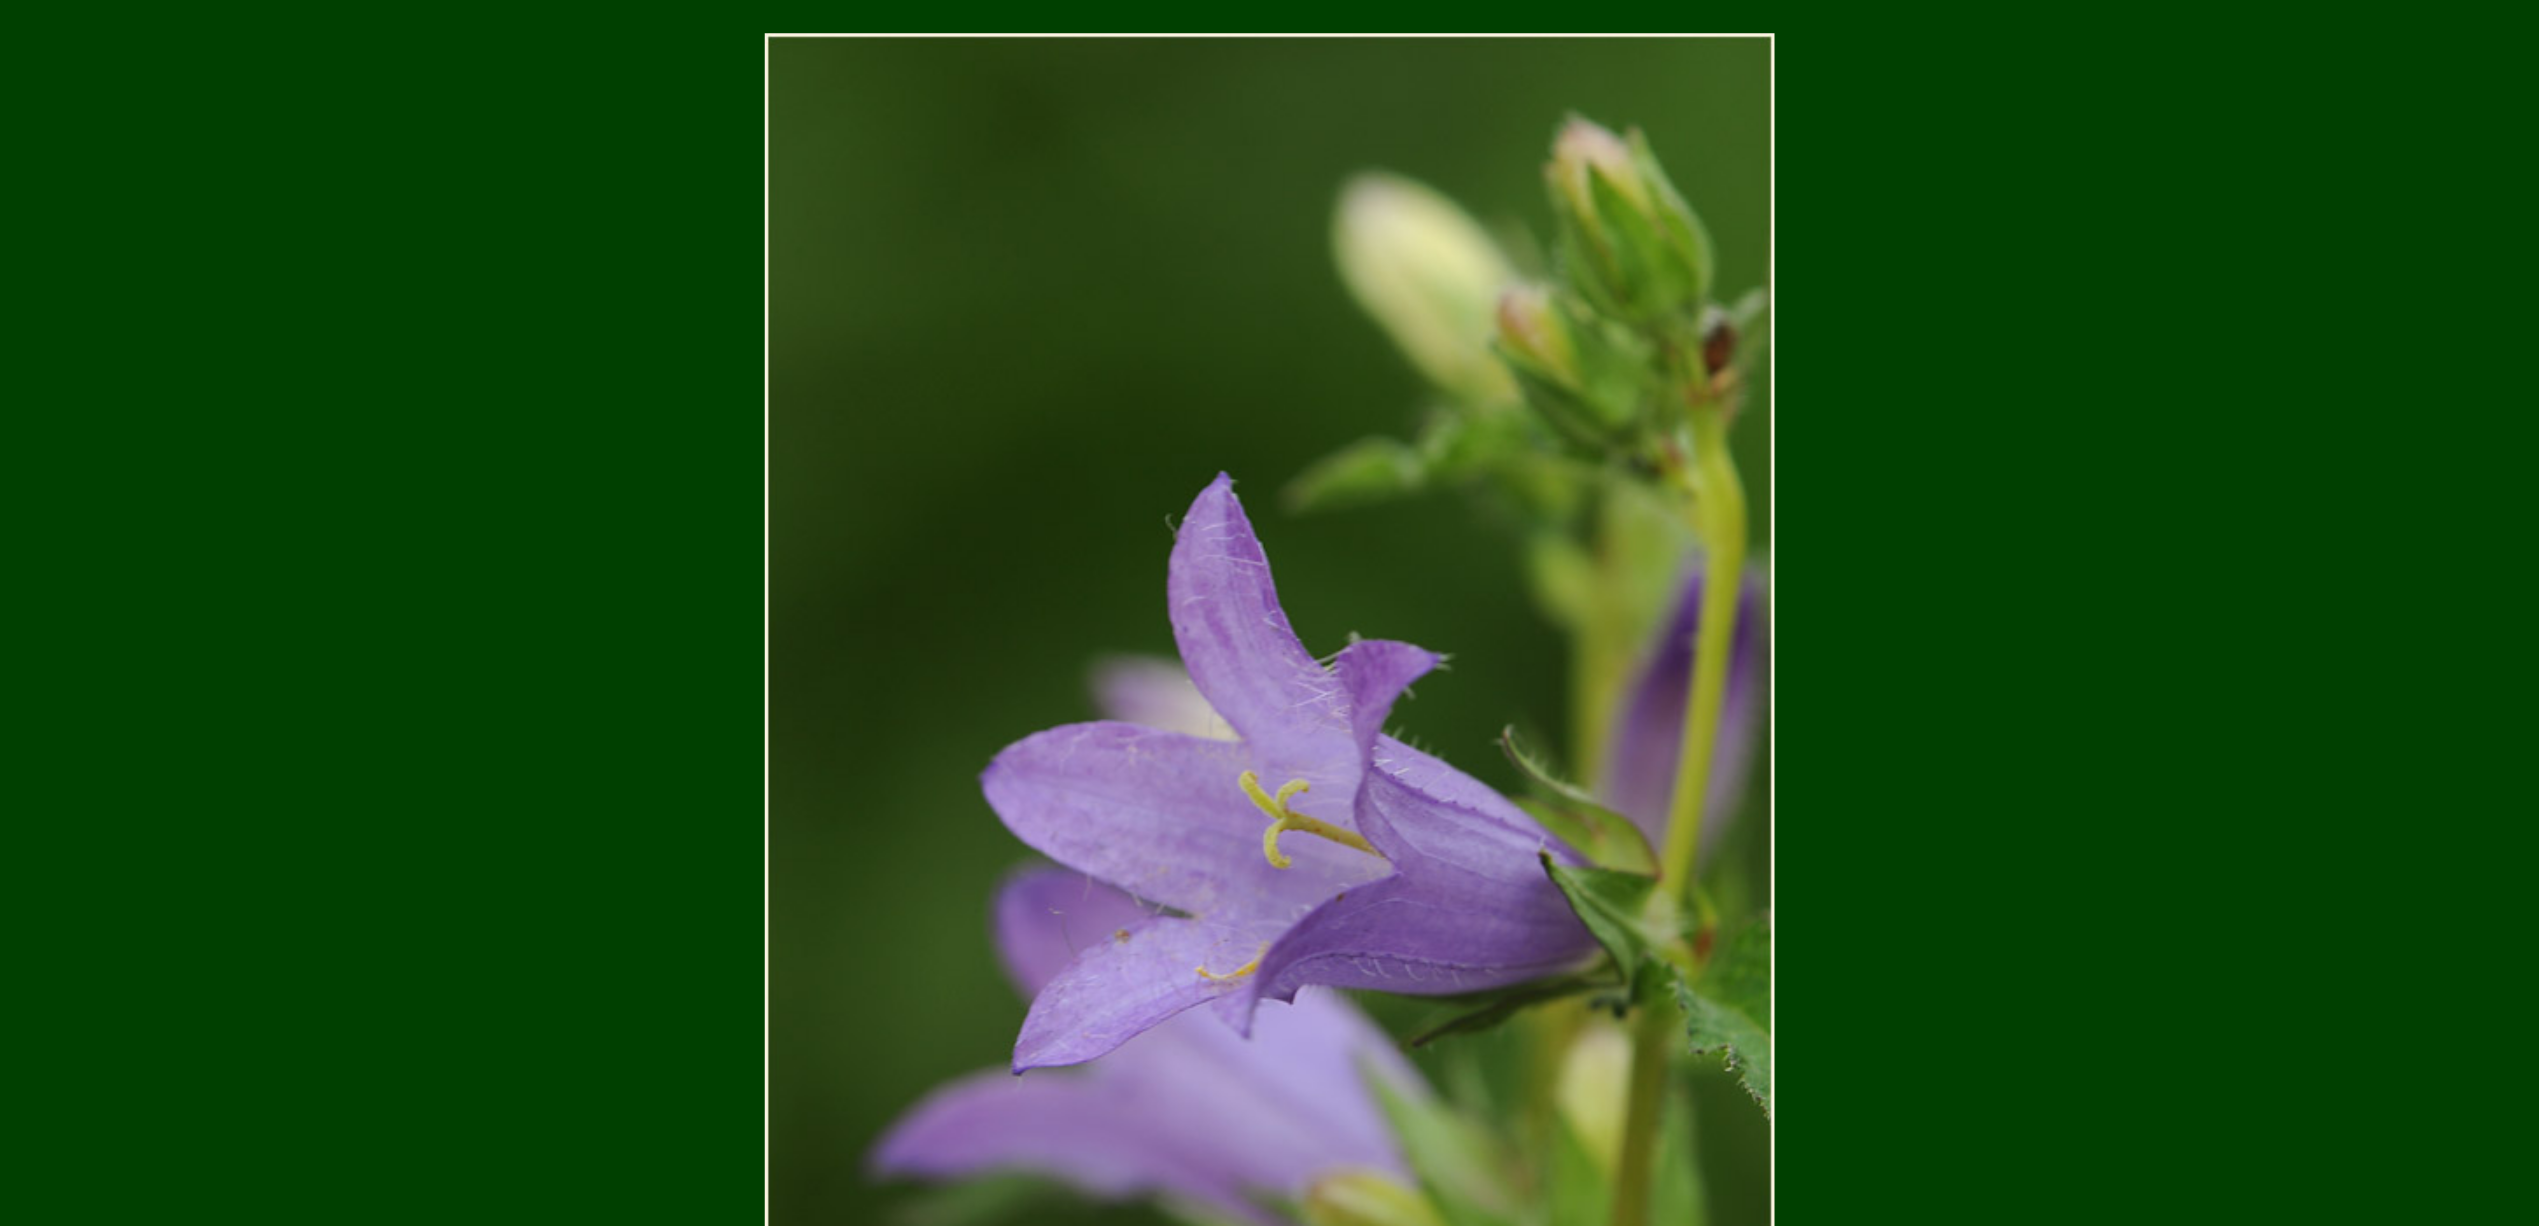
void draw(SkCanvas* canvas) {
    SkPaint paint;
    paint.setAntiAlias(true);
    auto paste = [&](const char* path, float x, float y, float w, float h) {
        auto image = SkImages::DeferredFromEncodedData(SkData::MakeFromFileName(path));
        canvas->drawImageRect(image, SkRect::MakeXYWH(x, y, w, h), SkSamplingOptions());
    };
    canvas->clear(SkColorSetRGB(0, 64, 0));
    paste("pic1.png", 764, 33, 1011, 1193);
}
